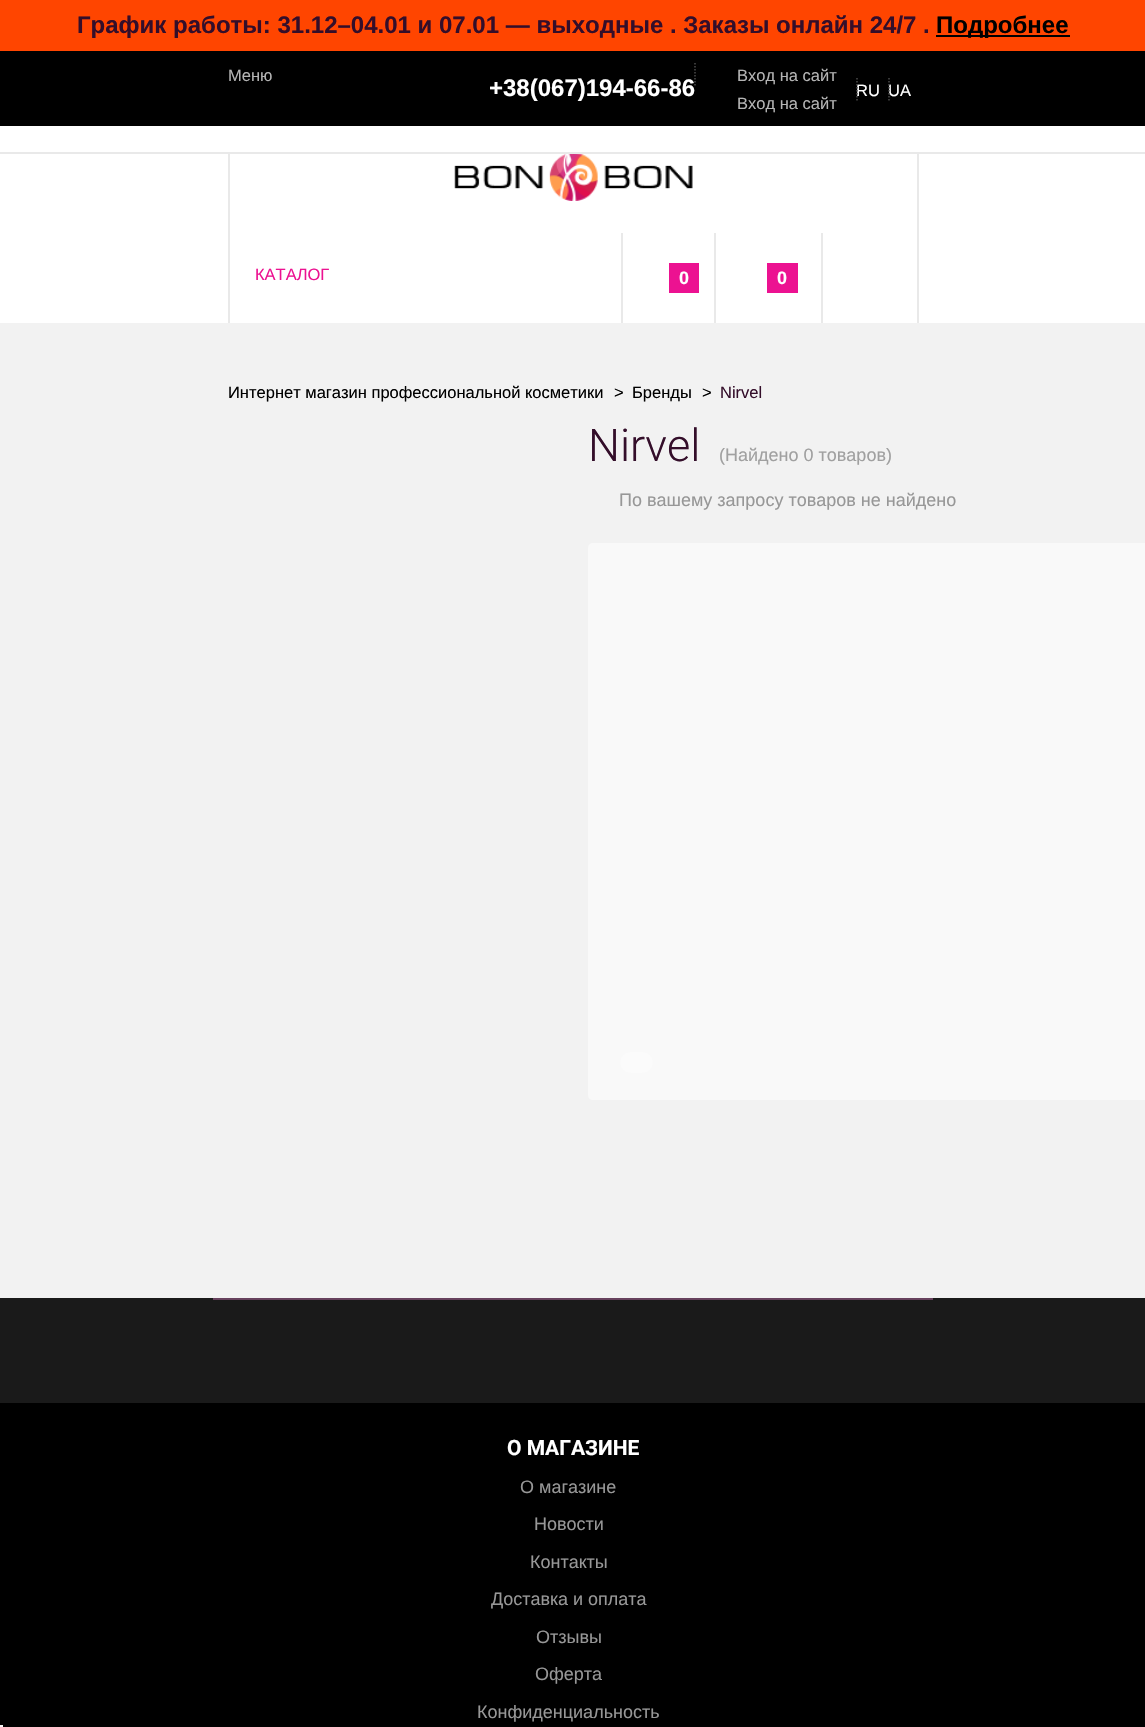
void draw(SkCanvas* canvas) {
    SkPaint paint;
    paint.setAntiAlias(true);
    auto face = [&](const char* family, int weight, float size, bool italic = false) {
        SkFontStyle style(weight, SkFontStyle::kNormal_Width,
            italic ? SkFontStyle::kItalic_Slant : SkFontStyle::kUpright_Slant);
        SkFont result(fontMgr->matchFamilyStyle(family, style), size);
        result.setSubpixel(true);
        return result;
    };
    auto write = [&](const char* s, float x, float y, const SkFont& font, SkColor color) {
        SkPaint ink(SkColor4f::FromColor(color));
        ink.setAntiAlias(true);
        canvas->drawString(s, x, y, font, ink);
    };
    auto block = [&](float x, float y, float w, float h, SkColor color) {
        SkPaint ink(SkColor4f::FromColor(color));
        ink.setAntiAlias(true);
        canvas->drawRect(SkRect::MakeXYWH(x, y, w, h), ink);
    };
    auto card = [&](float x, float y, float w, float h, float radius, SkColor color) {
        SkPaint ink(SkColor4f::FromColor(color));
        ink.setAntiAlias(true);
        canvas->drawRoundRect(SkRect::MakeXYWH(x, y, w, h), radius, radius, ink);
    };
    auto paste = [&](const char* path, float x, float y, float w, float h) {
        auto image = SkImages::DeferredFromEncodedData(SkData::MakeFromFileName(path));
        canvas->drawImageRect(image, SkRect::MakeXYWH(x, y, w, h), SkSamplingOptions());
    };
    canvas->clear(SkColorSetRGB(242, 242, 242));
    block(0, 0, 1145, 51, SkColorSetRGB(255, 69, 0));
    auto kFont1 = face("Liberation Sans", 700, 24);
    write("График работы: 31.12–04.01 и 07.01 — выходные . Заказы онлайн 24/7 .", 77, 33, kFont1, SkColorSetRGB(52, 14, 42));
    block(936, 35, 134, 2, SK_ColorBLACK);
    write("Подробнее", 936, 33, kFont1, SK_ColorBLACK);
    block(0, 51, 1145, 75, SK_ColorBLACK);
    auto kFont2 = face("Liberation Sans", 400, 16.5f);
    write("Меню", 228, 81, kFont2, SkColorSetRGB(180, 180, 180));
    write("+38(067)194-66-86", 489, 96, kFont1, SK_ColorWHITE);
    paint.setStyle(SkPaint::kStroke_Style);
    paint.setStrokeWidth(1.5f);
    paint.setColor(SkColorSetRGB(74, 74, 74));
    paint.setPathEffect(SkDashPathEffect::Make({{1.5f, 1.5f}}, 0));
    canvas->drawPath(SkPathBuilder().moveTo(695, 63).lineTo(695, 85.5f).detach(), paint);
    paint.setPathEffect(nullptr);
    write("Вход на сайт", 737, 81, kFont2, SkColorSetRGB(180, 180, 180));
    write("Вход на сайт", 737, 109, kFont2, SkColorSetRGB(180, 180, 180));
    write("RU", 856, 96, kFont2, SK_ColorWHITE);
    paint.setPathEffect(SkDashPathEffect::Make({{1.5f, 1.5f}}, 0));
    canvas->drawPath(SkPathBuilder().moveTo(857, 78).lineTo(857, 100.5f).detach(), paint);
    paint.setPathEffect(nullptr);
    write("UA", 888, 96, kFont2, SK_ColorWHITE);
    paint.setPathEffect(SkDashPathEffect::Make({{1.5f, 1.5f}}, 0));
    canvas->drawPath(SkPathBuilder().moveTo(889, 78).lineTo(889, 100.5f).detach(), paint);
    paint.setPathEffect(nullptr);
    block(0, 126, 1145, 197, SK_ColorWHITE);
    block(228, 152, 2, 171, SkColorSetRGB(233, 233, 233));
    block(0, 152, 1145, 2, SkColorSetRGB(233, 233, 233));
    paste("pic1.png", 454, 154, 239, 47);
    write("КАТАЛОГ", 255, 280, kFont2, SkColorSetRGB(236, 18, 145));
    block(621, 233, 2, 90, SkColorSetRGB(233, 233, 233));
    block(669, 263, 30, 30, SkColorSetRGB(236, 18, 145));
    auto kFont3 = face("Liberation Sans", 700, 18);
    write("0", 679, 284, kFont3, SK_ColorWHITE);
    block(714, 233, 2, 90, SkColorSetRGB(233, 233, 233));
    block(767, 263, 31, 30, SkColorSetRGB(236, 18, 145));
    write("0", 777, 284, kFont3, SK_ColorWHITE);
    block(821, 233, 2, 90, SkColorSetRGB(233, 233, 233));
    block(917, 153, 2, 170, SkColorSetRGB(233, 233, 233));
    write("Интернет магазин профессиональной косметики", 228, 398, kFont2, SK_ColorBLACK);
    write(">", 614, 398, kFont2, SK_ColorBLACK);
    write("Бренды", 632, 398, kFont2, SK_ColorBLACK);
    write(">", 702, 398, kFont2, SK_ColorBLACK);
    write("Nirvel", 720, 398, kFont2, SkColorSetRGB(52, 14, 42));
    auto kFont4 = face("Roboto", 300, 45);
    write("Nirvel", 588, 461, kFont4, SkColorSetRGB(52, 14, 42));
    auto kFont5 = face("Liberation Sans", 400, 18);
    write("(Найдено 0 товаров)", 719, 461, kFont5, SkColorSetRGB(160, 160, 160));
    write("По вашему запросу товаров не найдено", 619, 506, kFont5, SkColorSetRGB(151, 151, 151));
    card(620, 1052, 33, 21, 10.5f, SkColorSetRGB(246, 246, 246));
    paint.setStyle(SkPaint::kFill_Style);
    paint.setColor(SkColorSetARGB(128, 255, 255, 255));
    canvas->drawPath(SkPathBuilder().moveTo(593, 543).lineTo(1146, 543).lineTo(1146, 1100).lineTo(593, 1100).cubicTo(590, 1100, 588, 1098, 588, 1095).lineTo(588, 548).cubicTo(588, 545, 590, 543, 593, 543).close().detach(), paint);
    block(0, 1403, 1145, 324, SK_ColorBLACK);
    block(0, 1298, 1145, 105, SkColorSetRGB(26, 26, 26));
    block(213, 1298, 720, 2, SkColorSetRGB(103, 65, 93));
    auto kFont6 = face("Roboto", 700, 21);
    write("О МАГАЗИНЕ", 507, 1455, kFont6, SK_ColorWHITE);
    write("О магазине", 520, 1493, kFont5, SkColorSetRGB(151, 151, 151));
    write("Новости", 534, 1530, kFont5, SkColorSetRGB(151, 151, 151));
    write("Контакты", 530, 1568, kFont5, SkColorSetRGB(151, 151, 151));
    write("Доставка и оплата", 491, 1605, kFont5, SkColorSetRGB(151, 151, 151));
    write("Отзывы", 536, 1643, kFont5, SkColorSetRGB(151, 151, 151));
    write("Оферта", 535, 1680, kFont5, SkColorSetRGB(151, 151, 151));
    write("Конфиденциальность", 477, 1718, kFont5, SkColorSetRGB(151, 151, 151));
    block(0, 1725, 3, 2, SkColorSetRGB(245, 245, 245));
}
